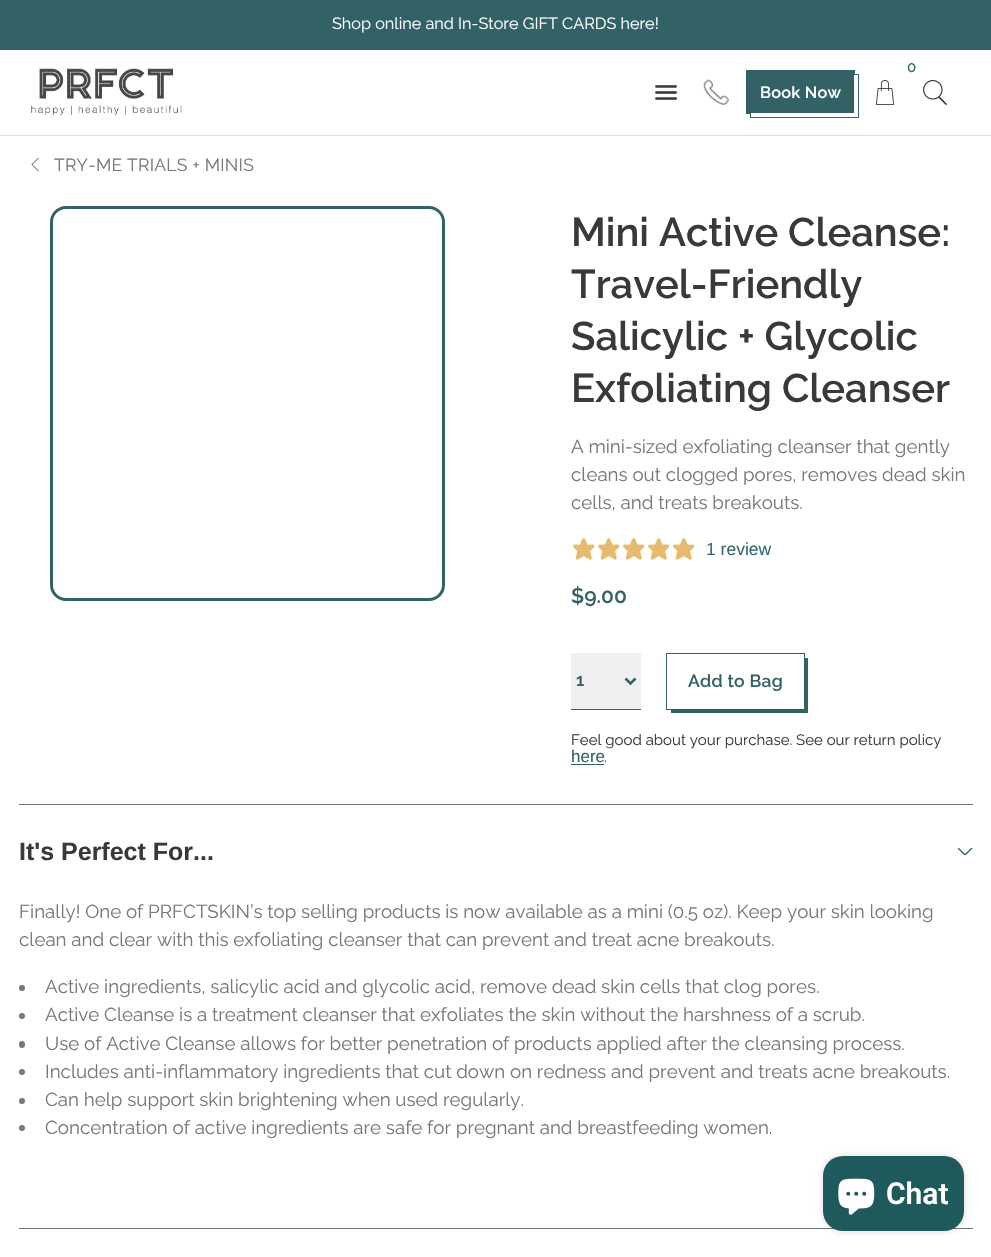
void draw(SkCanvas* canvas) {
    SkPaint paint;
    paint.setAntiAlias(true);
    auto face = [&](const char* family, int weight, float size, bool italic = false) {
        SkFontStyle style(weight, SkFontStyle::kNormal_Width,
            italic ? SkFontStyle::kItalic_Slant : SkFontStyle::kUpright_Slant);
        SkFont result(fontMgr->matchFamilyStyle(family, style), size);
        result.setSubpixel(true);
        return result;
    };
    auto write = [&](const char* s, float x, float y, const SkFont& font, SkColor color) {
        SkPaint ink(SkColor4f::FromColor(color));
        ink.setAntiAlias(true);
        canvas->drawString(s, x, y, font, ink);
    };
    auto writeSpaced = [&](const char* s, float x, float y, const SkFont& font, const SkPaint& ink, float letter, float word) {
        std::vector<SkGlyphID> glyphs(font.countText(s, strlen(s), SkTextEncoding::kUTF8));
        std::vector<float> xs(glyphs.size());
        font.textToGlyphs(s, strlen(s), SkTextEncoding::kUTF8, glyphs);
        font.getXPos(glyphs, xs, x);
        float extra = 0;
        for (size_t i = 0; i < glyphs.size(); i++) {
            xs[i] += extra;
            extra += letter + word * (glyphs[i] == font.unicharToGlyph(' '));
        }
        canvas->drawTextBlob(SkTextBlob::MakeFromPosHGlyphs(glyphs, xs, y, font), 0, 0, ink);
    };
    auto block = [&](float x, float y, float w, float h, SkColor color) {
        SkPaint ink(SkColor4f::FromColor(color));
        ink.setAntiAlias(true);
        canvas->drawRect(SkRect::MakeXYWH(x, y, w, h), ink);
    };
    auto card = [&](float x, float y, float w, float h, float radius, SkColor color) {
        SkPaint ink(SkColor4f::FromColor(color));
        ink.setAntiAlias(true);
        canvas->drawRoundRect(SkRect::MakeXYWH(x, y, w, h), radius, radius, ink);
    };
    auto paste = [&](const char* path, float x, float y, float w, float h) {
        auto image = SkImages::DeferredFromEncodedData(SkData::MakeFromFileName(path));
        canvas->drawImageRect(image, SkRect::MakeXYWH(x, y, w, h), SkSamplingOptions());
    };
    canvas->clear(SK_ColorWHITE);
    block(0, 134, 991, 1, SkColorSetRGB(248, 248, 248));
    block(0, 0, 991, 50, SkColorSetRGB(50, 98, 102));
    auto kFont1 = face("Raleway", 400, 16.25f);
    write("Shop online and In-Store GIFT CARDS here!", 332, 29, kFont1, SK_ColorWHITE);
    paste("pic1.png", 31, 68, 151, 47);
    auto kFont2 = face("Raleway", 500, 15);
    write("0", 907, 72, kFont2, SkColorSetRGB(50, 98, 102));
    paste("pic2.png", 875, 80, 20, 25);
    paste("pic3.png", 655, 85, 22, 15);
    paste("pic4.png", 703, 79, 27, 26);
    block(746, 70, 109, 44, SkColorSetRGB(50, 98, 102));
    block(854, 75, 1, 41, SK_ColorWHITE);
    block(751, 113, 107, 1, SK_ColorWHITE);
    paint.setStyle(SkPaint::kStroke_Style);
    paint.setStrokeWidth(1);
    paint.setColor(SkColorSetRGB(50, 98, 102));
    canvas->drawRect(SkRect::MakeXYWH(750.5f, 74.5f, 108, 43), paint);
    auto kFont3 = face("Raleway", 600, 16.25f);
    paint.setStyle(SkPaint::kFill_Style);
    paint.setColor(SK_ColorWHITE);
    writeSpaced("Book Now", 760, 98, kFont3, paint, 0.25f, 0);
    paste("pic5.png", 923, 80, 24, 25);
    block(0, 135, 991, 1, SkColorSetRGB(225, 225, 225));
    paste("pic6.png", 31, 158, 8, 14);
    auto kFont4 = face("Raleway", 400, 17.5f);
    paint.setColor(SkColorSetRGB(119, 119, 119));
    writeSpaced("TRY-ME TRIALS + MINIS", 54, 171, kFont4, paint, 0.25f, 0);
    paint.setStyle(SkPaint::kStroke_Style);
    paint.setStrokeWidth(3);
    paint.setColor(SkColorSetRGB(50, 98, 102));
    canvas->drawRoundRect(SkRect::MakeXYWH(51.5f, 207.5f, 392, 392), 14.5f, 14.5f, paint);
    auto kFont5 = face("Raleway", 600, 40);
    write("Mini Active Cleanse:", 571, 246, kFont5, SkColorSetRGB(58, 57, 55));
    write("Travel-Friendly", 571, 298, kFont5, SkColorSetRGB(58, 57, 55));
    write("Salicylic + Glycolic", 571, 350, kFont5, SkColorSetRGB(58, 57, 55));
    write("Exfoliating Cleanser", 571, 402, kFont5, SkColorSetRGB(58, 57, 55));
    auto kFont6 = face("Raleway", 400, 18.75f);
    write("A mini-sized exfoliating cleanser that gently", 571, 453, kFont6, SkColorSetRGB(119, 119, 119));
    write("cleans out clogged pores, removes dead skin", 571, 481, kFont6, SkColorSetRGB(119, 119, 119));
    write("cells, and treats breakouts.", 571, 509, kFont6, SkColorSetRGB(119, 119, 119));
    paste("pic7.png", 573, 538, 22, 22);
    paste("pic7.png", 598, 538, 22, 22);
    paste("pic7.png", 623, 538, 22, 22);
    paste("pic7.png", 648, 538, 22, 22);
    paste("pic7.png", 673, 538, 22, 22);
    auto kFont7 = face("Liberation Sans", 400, 17.5f);
    write("1 review", 706, 555, kFont7, SkColorSetRGB(54, 106, 111));
    auto kFont8 = face("Raleway", 600, 21);
    write("$9.00", 571, 603, kFont8, SkColorSetRGB(50, 98, 102));
    block(571, 653, 70, 56, SkColorSetRGB(239, 239, 239));
    block(571, 709, 70, 1, SkColorSetRGB(50, 98, 102));
    paint.setStrokeWidth(2.5f);
    canvas->drawPath(SkPathBuilder().moveTo(625.5f, 678.5f).lineTo(630.5f, 683.5f).lineTo(635.5f, 678.5f).detach(), paint);
    auto kFont9 = face("Raleway", 600, 17.5f);
    write("1", 576, 686, kFont9, SkColorSetRGB(50, 98, 102));
    paint.setStrokeWidth(1);
    canvas->drawRect(SkRect::MakeXYWH(666.5f, 653.5f, 138, 56), paint);
    block(804, 658, 4, 55, SkColorSetRGB(50, 98, 102));
    block(671, 710, 137, 3, SkColorSetRGB(50, 98, 102));
    paint.setStyle(SkPaint::kFill_Style);
    writeSpaced("Add to Bag", 688, 687, kFont9, paint, 0.25f, 0);
    auto kFont10 = face("Raleway", 400, 15);
    write("Feel good about your purchase. See our return policy", 571, 745, kFont10, SkColorSetRGB(58, 57, 55));
    auto kFont11 = face("Liberation Sans", 400, 17);
    write("here", 571, 762, kFont11, SkColorSetRGB(50, 98, 102));
    block(571, 764, 33, 1, SkColorSetRGB(50, 98, 102));
    write(".", 604, 762, kFont10, SkColorSetRGB(58, 57, 55));
    block(19, 804, 954, 1, SkColorSetRGB(119, 119, 119));
    block(19, 1228, 954, 1, SkColorSetRGB(119, 119, 119));
    auto kFont12 = face("Liberation Sans", 700, 25);
    write("It's Perfect For...", 19, 860, kFont12, SkColorSetRGB(58, 57, 55));
    paste("pic8.png", 958, 848, 15, 7);
    write("Finally! One of PRFCTSKIN’s top selling products is now available as a mini (0.5 oz). Keep your skin looking", 19, 918, kFont6, SkColorSetRGB(119, 119, 119));
    write("clean and clear with this exfoliating cleanser that can prevent and treat acne breakouts.", 19, 946, kFont6, SkColorSetRGB(119, 119, 119));
    paint.setColor(SkColorSetRGB(119, 119, 119));
    canvas->drawCircle(22, 988, 3, paint);
    write("Active ingredients, salicylic acid and glycolic acid, remove dead skin cells that clog pores.", 45, 993, kFont6, SkColorSetRGB(119, 119, 119));
    canvas->drawCircle(22, 1016, 3, paint);
    write("Active Cleanse is a treatment cleanser that exfoliates the skin without the harshness of a scrub.", 45, 1021, kFont6, SkColorSetRGB(119, 119, 119));
    card(19, 1041, 6, 7, 3, SkColorSetRGB(119, 119, 119));
    write("Use of Active Cleanse allows for better penetration of products applied after the cleansing process.", 45, 1050, kFont6, SkColorSetRGB(119, 119, 119));
    canvas->drawCircle(22, 1072, 3, paint);
    write("Includes anti-inflammatory ingredients that cut down on redness and prevent and treats acne breakouts.", 45, 1078, kFont6, SkColorSetRGB(119, 119, 119));
    canvas->drawCircle(22, 1101, 3, paint);
    write("Can help support skin brightening when used regularly.", 45, 1106, kFont6, SkColorSetRGB(119, 119, 119));
    canvas->drawCircle(22, 1128, 3, paint);
    write("Concentration of active ingredients are safe for pregnant and breastfeeding women.", 45, 1134, kFont6, SkColorSetRGB(119, 119, 119));
    paint.setColor(SkColorSetARGB(38, 0, 0, 0));
    paint.setMaskFilter(SkMaskFilter::MakeBlur(kNormal_SkBlurStyle, 3));
    canvas->drawRoundRect(SkRect::MakeXYWH(823, 1156, 141, 75), 20, 20, paint);
    paint.setMaskFilter(nullptr);
    card(823, 1156, 141, 75, 20, SkColorSetRGB(30, 89, 92));
    paste("pic9.png", 838, 1178, 37, 37);
    auto kFont13 = face("Roboto", 600, 30);
    write("Chat", 886, 1204, kFont13, SK_ColorWHITE);
}
